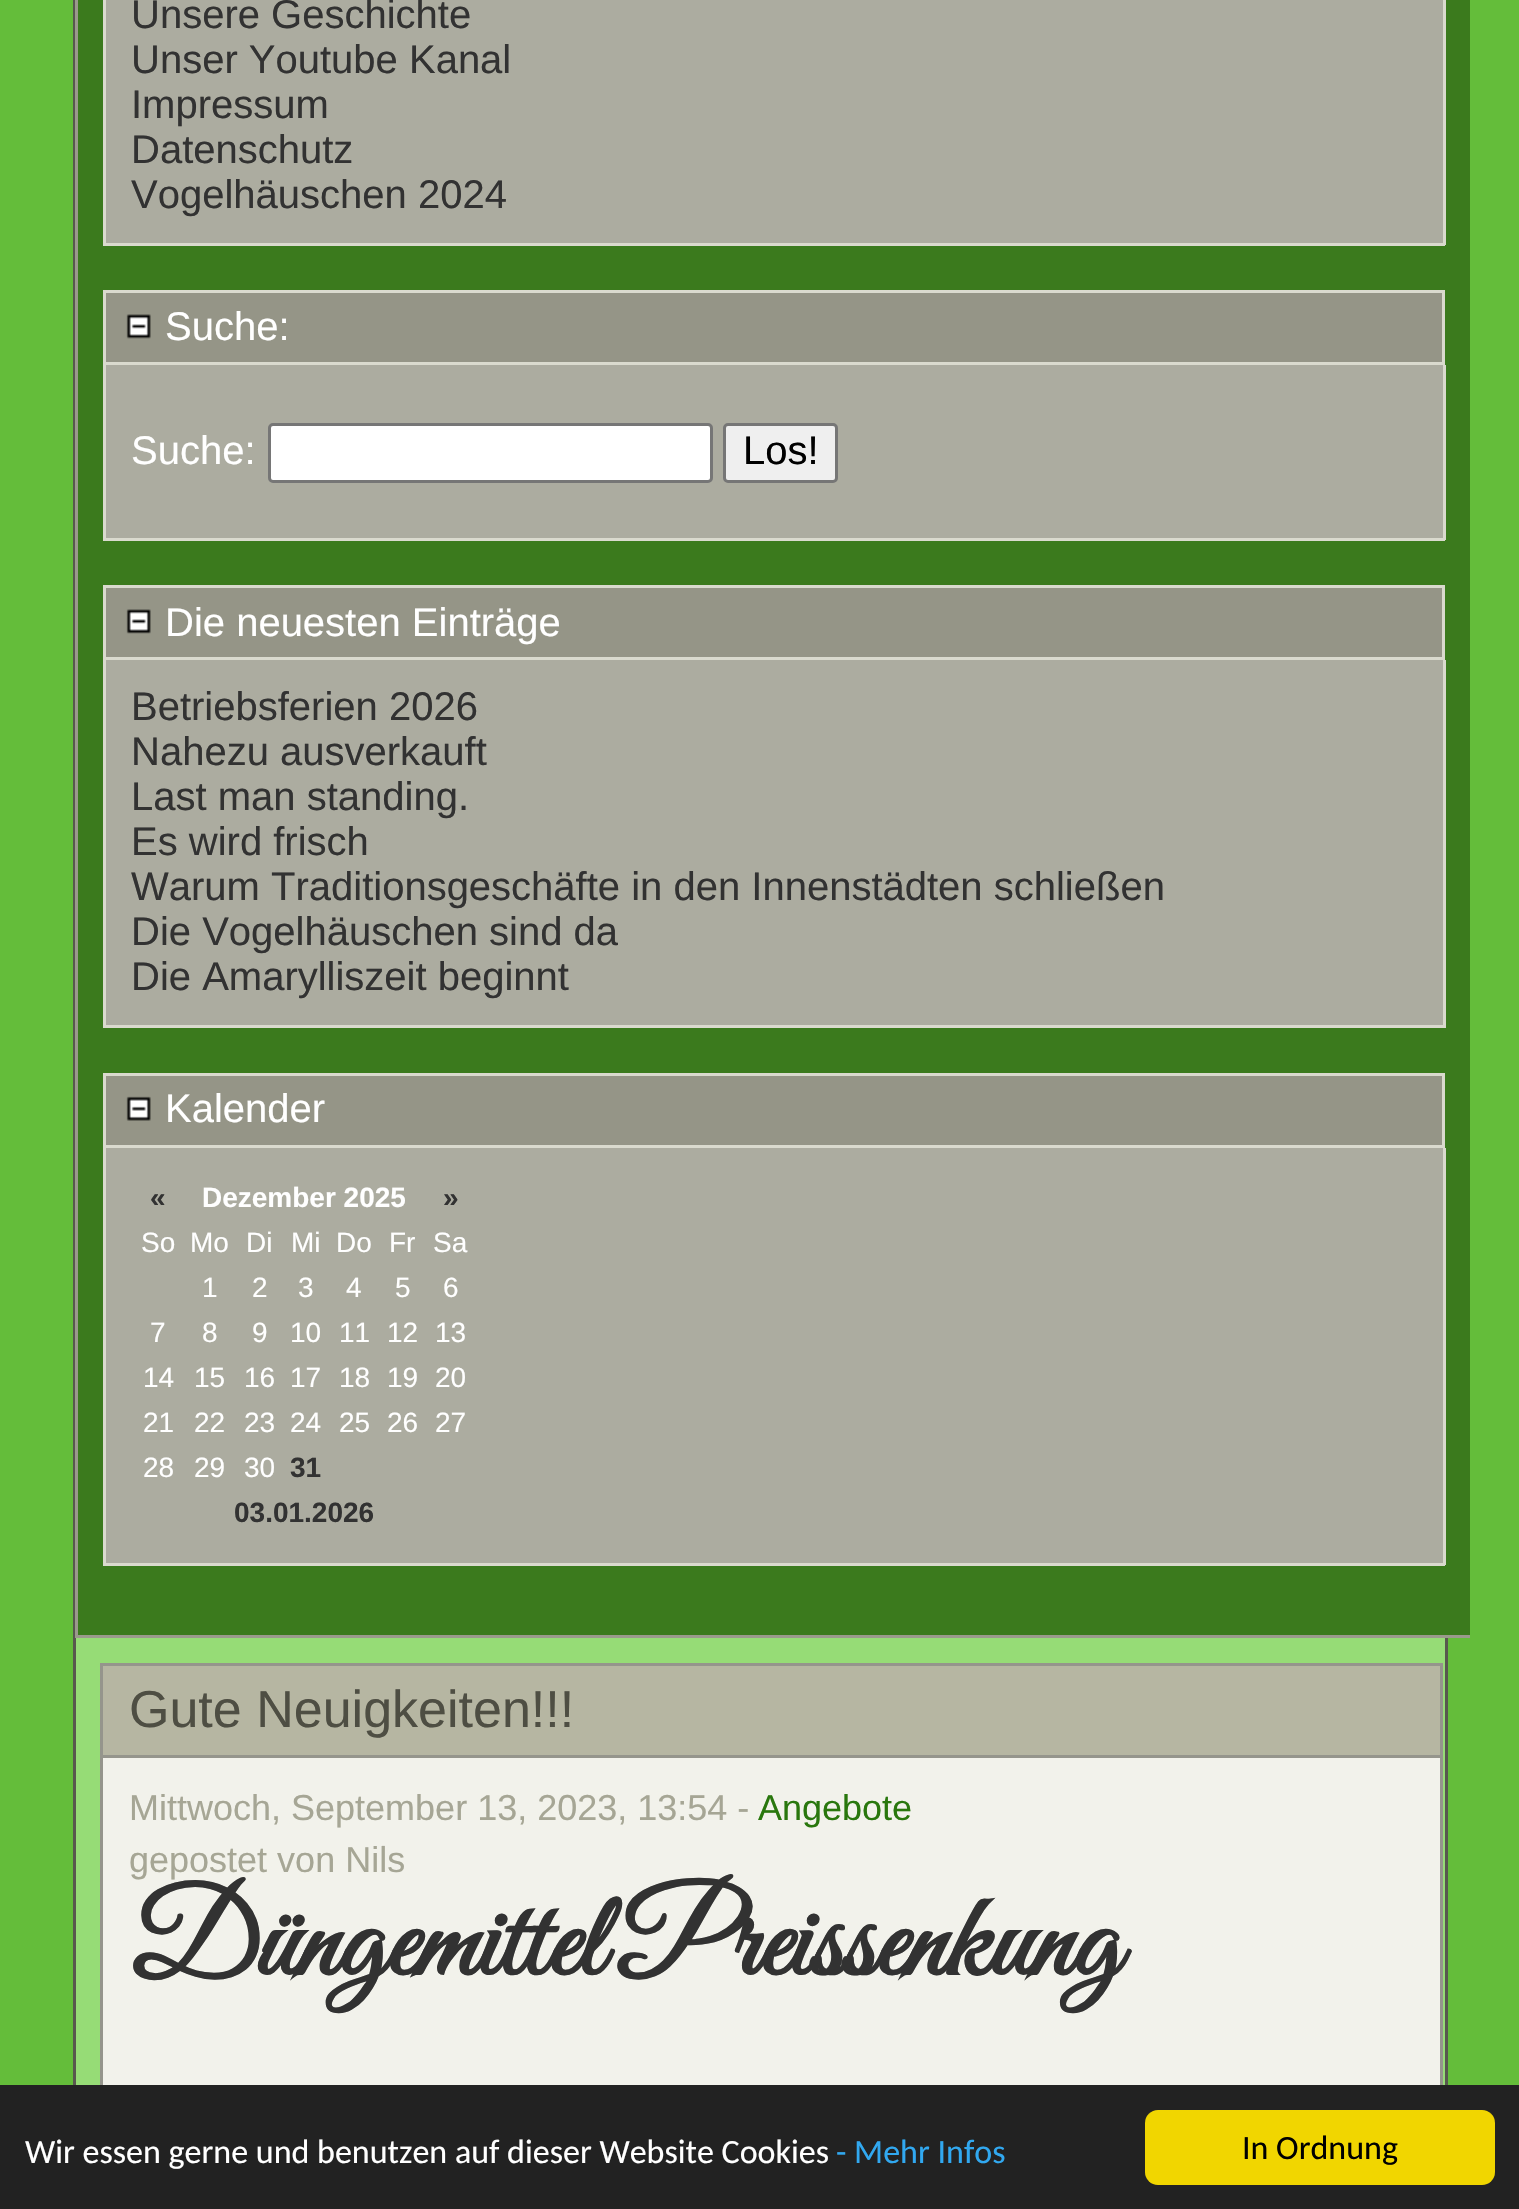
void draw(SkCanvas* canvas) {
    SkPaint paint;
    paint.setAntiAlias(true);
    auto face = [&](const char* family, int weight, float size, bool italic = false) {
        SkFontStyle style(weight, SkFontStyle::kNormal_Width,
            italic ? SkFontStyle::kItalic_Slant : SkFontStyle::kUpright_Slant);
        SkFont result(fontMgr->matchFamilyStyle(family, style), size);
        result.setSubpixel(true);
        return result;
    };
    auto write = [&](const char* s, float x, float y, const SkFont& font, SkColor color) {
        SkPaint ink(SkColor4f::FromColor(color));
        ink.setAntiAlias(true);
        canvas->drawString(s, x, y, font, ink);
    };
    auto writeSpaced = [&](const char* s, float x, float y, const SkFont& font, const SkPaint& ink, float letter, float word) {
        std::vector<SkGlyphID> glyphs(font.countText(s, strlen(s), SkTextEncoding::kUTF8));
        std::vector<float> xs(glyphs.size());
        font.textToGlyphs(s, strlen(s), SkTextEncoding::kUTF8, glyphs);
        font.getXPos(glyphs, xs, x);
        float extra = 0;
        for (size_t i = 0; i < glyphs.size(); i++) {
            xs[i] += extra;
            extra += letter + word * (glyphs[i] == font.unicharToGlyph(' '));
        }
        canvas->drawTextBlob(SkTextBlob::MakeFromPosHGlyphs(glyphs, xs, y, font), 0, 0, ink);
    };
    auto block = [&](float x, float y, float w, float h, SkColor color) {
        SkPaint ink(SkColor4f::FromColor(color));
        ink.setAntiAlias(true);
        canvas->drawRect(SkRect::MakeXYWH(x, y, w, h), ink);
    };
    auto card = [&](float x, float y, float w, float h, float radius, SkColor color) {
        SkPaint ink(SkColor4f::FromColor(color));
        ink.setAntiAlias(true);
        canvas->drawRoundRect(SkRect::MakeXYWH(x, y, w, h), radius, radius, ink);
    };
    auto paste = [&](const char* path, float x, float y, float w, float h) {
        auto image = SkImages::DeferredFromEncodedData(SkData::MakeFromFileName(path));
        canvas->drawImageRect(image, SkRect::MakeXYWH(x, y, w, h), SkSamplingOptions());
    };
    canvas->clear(SkColorSetRGB(100, 189, 58));
    block(76, 1638, 1369, 447, SkColorSetRGB(150, 220, 118));
    paint.setStyle(SkPaint::kStroke_Style);
    paint.setStrokeWidth(3);
    paint.setColor(SkColorSetRGB(88, 88, 78));
    canvas->drawRect(SkRect::MakeXYWH(74.5f, -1.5f, 1372, 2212), paint);
    block(78, 0, 1392, 1635, SkColorSetRGB(59, 122, 29));
    block(75, 1635, 1395, 3, SkColorSetRGB(154, 154, 140));
    block(75, 0, 3, 1638, SkColorSetRGB(154, 154, 140));
    block(106, 0, 1337, 243, SkColorSetRGB(172, 172, 160));
    block(1443, 0, 3, 245, SkColorSetRGB(218, 218, 206));
    block(103, 243, 1342, 3, SkColorSetRGB(218, 218, 206));
    block(103, 0, 3, 245, SkColorSetRGB(218, 218, 206));
    auto kFont1 = face("Liberation Sans", 400, 40);
    write("Unsere Geschichte", 131, 28, kFont1, SkColorSetRGB(50, 50, 50));
    write("Unser Youtube Kanal", 131, 73, kFont1, SkColorSetRGB(50, 50, 50));
    write("Impressum", 131, 118, kFont1, SkColorSetRGB(50, 50, 50));
    write("Datenschutz", 131, 163, kFont1, SkColorSetRGB(50, 50, 50));
    write("Vogelhäuschen 2024", 131, 208, kFont1, SkColorSetRGB(50, 50, 50));
    paint.setStyle(SkPaint::kFill_Style);
    paint.setColor(SkColorSetRGB(149, 149, 135));
    canvas->drawRect(SkRect::MakeXYWH(104.5f, 291.5f, 1339, 72), paint);
    paint.setStyle(SkPaint::kStroke_Style);
    paint.setColor(SkColorSetRGB(218, 218, 206));
    canvas->drawRect(SkRect::MakeXYWH(104.5f, 291.5f, 1339, 72), paint);
    paste("pic1.png", 126, 314, 25, 25);
    write("Suche:", 165, 340, kFont1, SK_ColorWHITE);
    block(106, 365, 1337, 173, SkColorSetRGB(172, 172, 160));
    block(1443, 365, 3, 175, SkColorSetRGB(218, 218, 206));
    block(103, 538, 1342, 3, SkColorSetRGB(218, 218, 206));
    block(103, 365, 3, 175, SkColorSetRGB(218, 218, 206));
    write("Suche:", 131, 464, kFont1, SK_ColorWHITE);
    paint.setStyle(SkPaint::kFill_Style);
    paint.setColor(SK_ColorWHITE);
    canvas->drawRoundRect(SkRect::MakeXYWH(269.5f, 424.5f, 442, 57), 3.5f, 3.5f, paint);
    paint.setStyle(SkPaint::kStroke_Style);
    paint.setColor(SkColorSetRGB(118, 118, 118));
    canvas->drawRoundRect(SkRect::MakeXYWH(269.5f, 424.5f, 442, 57), 3.5f, 3.5f, paint);
    paint.setStyle(SkPaint::kFill_Style);
    paint.setColor(SkColorSetRGB(239, 239, 239));
    canvas->drawRoundRect(SkRect::MakeXYWH(724.5f, 424.5f, 112, 57), 3.5f, 3.5f, paint);
    paint.setStyle(SkPaint::kStroke_Style);
    paint.setColor(SkColorSetRGB(118, 118, 118));
    canvas->drawRoundRect(SkRect::MakeXYWH(724.5f, 424.5f, 112, 57), 3.5f, 3.5f, paint);
    write("Los!", 743, 464, kFont1, SK_ColorBLACK);
    paint.setStyle(SkPaint::kFill_Style);
    paint.setColor(SkColorSetRGB(149, 149, 135));
    canvas->drawRect(SkRect::MakeXYWH(104.5f, 586.5f, 1339, 72), paint);
    paint.setStyle(SkPaint::kStroke_Style);
    paint.setColor(SkColorSetRGB(218, 218, 206));
    canvas->drawRect(SkRect::MakeXYWH(104.5f, 586.5f, 1339, 72), paint);
    paste("pic2.png", 126, 609, 25, 25);
    write("Die neuesten Einträge", 165, 636, kFont1, SK_ColorWHITE);
    block(106, 660, 1337, 365, SkColorSetRGB(172, 172, 160));
    block(1443, 660, 3, 368, SkColorSetRGB(218, 218, 206));
    block(103, 1025, 1342, 3, SkColorSetRGB(218, 218, 206));
    block(103, 660, 3, 368, SkColorSetRGB(218, 218, 206));
    write("Betriebsferien 2026", 131, 720, kFont1, SkColorSetRGB(50, 50, 50));
    write("Nahezu ausverkauft", 131, 765, kFont1, SkColorSetRGB(50, 50, 50));
    write("Last man standing.", 131, 810, kFont1, SkColorSetRGB(50, 50, 50));
    write("Es wird frisch", 131, 855, kFont1, SkColorSetRGB(50, 50, 50));
    write("Warum Traditionsgeschäfte in den Innenstädten schließen", 131, 900, kFont1, SkColorSetRGB(50, 50, 50));
    write("Die Vogelhäuschen sind da", 131, 945, kFont1, SkColorSetRGB(50, 50, 50));
    write("Die Amarylliszeit beginnt", 131, 990, kFont1, SkColorSetRGB(50, 50, 50));
    paint.setStyle(SkPaint::kFill_Style);
    paint.setColor(SkColorSetRGB(149, 149, 135));
    canvas->drawRect(SkRect::MakeXYWH(104.5f, 1074.5f, 1339, 72), paint);
    paint.setStyle(SkPaint::kStroke_Style);
    paint.setColor(SkColorSetRGB(218, 218, 206));
    canvas->drawRect(SkRect::MakeXYWH(104.5f, 1074.5f, 1339, 72), paint);
    paste("pic3.png", 126, 1096, 25, 25);
    write("Kalender", 165, 1122, kFont1, SK_ColorWHITE);
    block(106, 1148, 1337, 415, SkColorSetRGB(172, 172, 160));
    block(1443, 1148, 3, 417, SkColorSetRGB(218, 218, 206));
    block(103, 1563, 1342, 3, SkColorSetRGB(218, 218, 206));
    block(103, 1148, 3, 417, SkColorSetRGB(218, 218, 206));
    auto kFont2 = face("Liberation Sans", 700, 28);
    write("«", 150, 1207, kFont2, SkColorSetRGB(50, 50, 50));
    write("Dezember 2025", 202, 1207, kFont2, SK_ColorWHITE);
    write("»", 443, 1207, kFont2, SkColorSetRGB(50, 50, 50));
    auto kFont3 = face("Liberation Sans", 400, 28);
    write("So", 141, 1252, kFont3, SK_ColorWHITE);
    write("Mo", 190, 1252, kFont3, SK_ColorWHITE);
    write("Di", 246, 1252, kFont3, SK_ColorWHITE);
    write("Mi", 291, 1252, kFont3, SK_ColorWHITE);
    write("Do", 336, 1252, kFont3, SK_ColorWHITE);
    write("Fr", 389, 1252, kFont3, SK_ColorWHITE);
    write("Sa", 433, 1252, kFont3, SK_ColorWHITE);
    write("1", 202, 1297, kFont3, SK_ColorWHITE);
    write("2", 252, 1297, kFont3, SK_ColorWHITE);
    write("3", 298, 1297, kFont3, SK_ColorWHITE);
    write("4", 346, 1297, kFont3, SK_ColorWHITE);
    write("5", 395, 1297, kFont3, SK_ColorWHITE);
    write("6", 443, 1297, kFont3, SK_ColorWHITE);
    write("7", 150, 1342, kFont3, SK_ColorWHITE);
    write("8", 202, 1342, kFont3, SK_ColorWHITE);
    write("9", 252, 1342, kFont3, SK_ColorWHITE);
    write("10", 290, 1342, kFont3, SK_ColorWHITE);
    write("11", 339, 1342, kFont3, SK_ColorWHITE);
    write("12", 387, 1342, kFont3, SK_ColorWHITE);
    write("13", 435, 1342, kFont3, SK_ColorWHITE);
    write("14", 143, 1387, kFont3, SK_ColorWHITE);
    write("15", 194, 1387, kFont3, SK_ColorWHITE);
    write("16", 244, 1387, kFont3, SK_ColorWHITE);
    write("17", 290, 1387, kFont3, SK_ColorWHITE);
    write("18", 339, 1387, kFont3, SK_ColorWHITE);
    write("19", 387, 1387, kFont3, SK_ColorWHITE);
    write("20", 435, 1387, kFont3, SK_ColorWHITE);
    write("21", 143, 1432, kFont3, SK_ColorWHITE);
    write("22", 194, 1432, kFont3, SK_ColorWHITE);
    write("23", 244, 1432, kFont3, SK_ColorWHITE);
    write("24", 290, 1432, kFont3, SK_ColorWHITE);
    write("25", 339, 1432, kFont3, SK_ColorWHITE);
    write("26", 387, 1432, kFont3, SK_ColorWHITE);
    write("27", 435, 1432, kFont3, SK_ColorWHITE);
    write("28", 143, 1477, kFont3, SK_ColorWHITE);
    write("29", 194, 1477, kFont3, SK_ColorWHITE);
    write("30", 244, 1477, kFont3, SK_ColorWHITE);
    write("31", 290, 1477, kFont2, SkColorSetRGB(50, 50, 50));
    write("03.01.2026", 234, 1522, kFont2, SkColorSetRGB(50, 50, 50));
    block(103, 1666, 1337, 89, SkColorSetRGB(182, 182, 162));
    block(100, 1663, 1343, 3, SkColorSetRGB(149, 149, 140));
    block(1440, 1663, 3, 92, SkColorSetRGB(149, 149, 140));
    block(100, 1663, 3, 92, SkColorSetRGB(149, 149, 140));
    auto kFont4 = face("Liberation Sans", 400, 52);
    write("Gute Neuigkeiten!!!", 129, 1727, kFont4, SkColorSetRGB(78, 78, 67));
    block(103, 1758, 1337, 327, SkColorSetRGB(242, 242, 235));
    paint.setColor(SkColorSetRGB(149, 149, 140));
    canvas->drawRect(SkRect::MakeXYWH(101.5f, 1756.5f, 1340, 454), paint);
    auto kFont5 = face("Liberation Sans", 400, 36);
    write("Mittwoch, September 13, 2023, 13:54 -", 129, 1820, kFont5, SkColorSetRGB(166, 166, 149));
    write("Angebote", 758, 1820, kFont5, SkColorSetRGB(41, 119, 13));
    write("gepostet von Nils", 129, 1872, kFont5, SkColorSetRGB(166, 166, 149));
    auto kFont6 = face("Great Vibes", 700, 120);
    paint.setStyle(SkPaint::kFill_Style);
    paint.setColor(SkColorSetRGB(50, 50, 50));
    writeSpaced("Düngemittel Preissenkung", 129, 1975, kFont6, paint, 0, -7);
    block(0, 2085, 1519, 124, SkColorSetRGB(34, 34, 34));
    auto kFont7 = face("Carlito", 400, 34);
    write("Wir essen gerne und benutzen auf dieser Website Cookies", 25, 2163, kFont7, SK_ColorWHITE);
    write("- Mehr Infos", 836, 2163, kFont7, SkColorSetRGB(49, 168, 240));
    card(1145, 2110, 350, 75, 13, SkColorSetRGB(241, 214, 0));
    write("In Ordnung", 1242, 2159, kFont7, SK_ColorBLACK);
}
